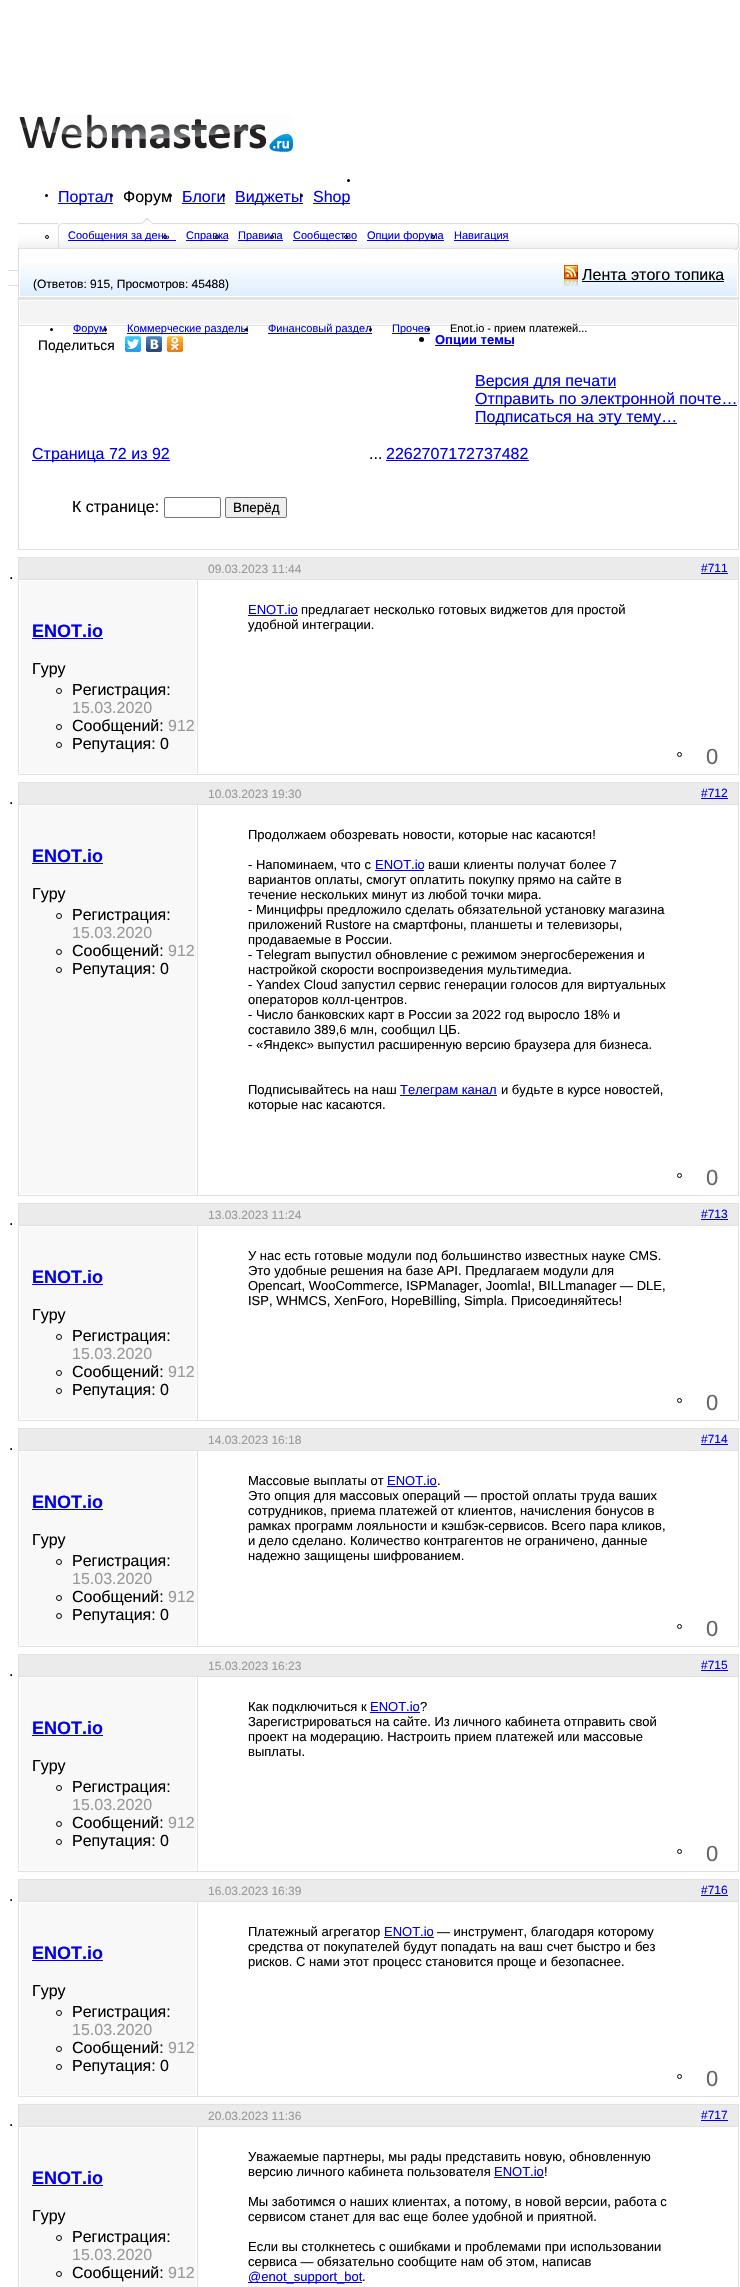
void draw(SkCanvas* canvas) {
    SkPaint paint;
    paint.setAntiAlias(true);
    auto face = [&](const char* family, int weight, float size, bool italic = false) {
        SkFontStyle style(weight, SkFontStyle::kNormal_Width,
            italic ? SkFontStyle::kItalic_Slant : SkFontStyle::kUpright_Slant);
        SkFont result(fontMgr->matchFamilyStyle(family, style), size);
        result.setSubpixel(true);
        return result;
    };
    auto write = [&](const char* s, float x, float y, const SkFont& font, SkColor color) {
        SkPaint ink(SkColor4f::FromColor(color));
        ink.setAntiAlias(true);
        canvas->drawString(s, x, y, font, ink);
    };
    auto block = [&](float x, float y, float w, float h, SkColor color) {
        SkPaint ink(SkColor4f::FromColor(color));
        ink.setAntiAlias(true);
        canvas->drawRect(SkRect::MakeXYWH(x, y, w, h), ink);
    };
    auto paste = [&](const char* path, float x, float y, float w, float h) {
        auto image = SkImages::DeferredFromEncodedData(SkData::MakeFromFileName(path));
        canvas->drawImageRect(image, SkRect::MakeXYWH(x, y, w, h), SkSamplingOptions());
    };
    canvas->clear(SK_ColorWHITE);
    paste("pic1.png", 19, 114, 274, 38);
    paint.setColor(SK_ColorBLACK);
    canvas->drawCircle(348.5f, 180.5f, 1.5f, paint);
    block(58, 203, 55, 1, SkColorSetRGB(0, 0, 238));
    auto kFont1 = face("Liberation Sans", 400, 16);
    write("Портал", 58, 202, kFont1, SkColorSetRGB(0, 0, 238));
    canvas->drawCircle(111.5f, 195.5f, 1.5f, paint);
    paste("pic3.png", 18, 223, 722, 27);
    paste("pic2.png", 141, 218, 11, 6);
    canvas->drawCircle(170.5f, 195.5f, 1.5f, paint);
    write("Форум", 123, 202, kFont1, SK_ColorBLACK);
    paste("pic4.png", 58, 223, 5, 25);
    paint.setStyle(SkPaint::kStroke_Style);
    paint.setStrokeWidth(1);
    canvas->drawCircle(47, 237, 1.5f, paint);
    block(68, 240, 108, 1, SkColorSetRGB(0, 0, 238));
    auto kFont2 = face("Liberation Sans", 400, 11);
    write("Сообщения за день", 68, 239, kFont2, SkColorSetRGB(0, 0, 238));
    canvas->drawCircle(165, 237, 1.5f, paint);
    block(186, 240, 42, 1, SkColorSetRGB(0, 0, 238));
    write("Справка", 186, 239, kFont2, SkColorSetRGB(0, 0, 238));
    canvas->drawCircle(217, 237, 1.5f, paint);
    block(238, 240, 45, 1, SkColorSetRGB(0, 0, 238));
    write("Правила", 238, 239, kFont2, SkColorSetRGB(0, 0, 238));
    canvas->drawCircle(272, 237, 1.5f, paint);
    block(293, 240, 64, 1, SkColorSetRGB(0, 0, 238));
    write("Сообщество", 293, 239, kFont2, SkColorSetRGB(0, 0, 238));
    canvas->drawCircle(346, 237, 1.5f, paint);
    block(367, 240, 77, 1, SkColorSetRGB(0, 0, 238));
    write("Опции форума", 367, 239, kFont2, SkColorSetRGB(0, 0, 238));
    canvas->save();
    canvas->clipRect(SkRect::MakeXYWH(8, 8, 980, 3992));
    paint.setColor(SkColorSetRGB(223, 223, 223));
    canvas->drawRect(SkRect::MakeXYWH(-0.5f, 270.5f, 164, 15), paint);
    canvas->restore();
    paint.setColor(SK_ColorBLACK);
    canvas->drawCircle(433, 237, 1.5f, paint);
    block(454, 240, 55, 1, SkColorSetRGB(0, 0, 238));
    write("Навигация", 454, 239, kFont2, SkColorSetRGB(0, 0, 238));
    paint.setStyle(SkPaint::kFill_Style);
    canvas->drawCircle(46.5f, 195.5f, 1.5f, paint);
    write("Блоги", 182, 202, kFont1, SkColorSetRGB(0, 0, 238));
    block(182, 203, 43, 1, SkColorSetRGB(0, 0, 238));
    canvas->drawCircle(223.5f, 195.5f, 1.5f, paint);
    block(235, 203, 68, 1, SkColorSetRGB(0, 0, 238));
    write("Виджеты", 235, 202, kFont1, SkColorSetRGB(0, 0, 238));
    canvas->drawCircle(301.5f, 195.5f, 1.5f, paint);
    block(313, 203, 37, 1, SkColorSetRGB(0, 0, 238));
    write("Shop", 313, 202, kFont1, SkColorSetRGB(0, 0, 238));
    block(738, 248, 1, 302, SkColorSetRGB(221, 221, 221));
    block(19, 248, 719, 1, SkColorSetRGB(225, 225, 225));
    paste("pic6.png", 20, 263, 717, 33);
    paint.setStyle(SkPaint::kStroke_Style);
    paint.setColor(SK_ColorWHITE);
    canvas->drawRect(SkRect::MakeXYWH(19.5f, 249.5f, 718, 47), paint);
    paste("pic5.png", 734, 223, 5, 27);
    block(18, 248, 1, 302, SkColorSetRGB(221, 221, 221));
    block(19, 297, 719, 3, SkColorSetRGB(227, 227, 227));
    paste("pic7.png", 564, 265, 14, 22);
    write("Лента этого топика", 582, 280, kFont1, SK_ColorBLACK);
    block(582, 281, 142, 1, SK_ColorBLACK);
    auto kFont3 = face("Liberation Sans", 400, 12);
    write("(Ответов: 915, Просмотров: 45488)", 33, 288, kFont3, SK_ColorBLACK);
    block(19, 325, 719, 1, SkColorSetRGB(225, 225, 225));
    block(19, 549, 719, 1, SkColorSetRGB(225, 225, 225));
    auto kFont4 = face("Liberation Sans", 400, 13.75f);
    write("Поделиться", 38, 350, kFont4, SK_ColorBLACK);
    paste("pic8.png", 125, 336, 16, 16);
    paste("pic9.png", 146, 336, 16, 16);
    paste("pic10.png", 167, 336, 16, 16);
    block(32, 460, 138, 1, SkColorSetRGB(0, 0, 238));
    write("Страница 72 из 92", 32, 459, kFont1, SkColorSetRGB(0, 0, 238));
    write("...", 369, 459, kFont1, SK_ColorBLACK);
    write("2262707172737482", 386, 459, kFont1, SkColorSetRGB(0, 0, 238));
    block(386, 460, 143, 1, SkColorSetRGB(0, 0, 238));
    write("К странице:", 72, 512, kFont1, SK_ColorBLACK);
    paint.setColor(SkColorSetRGB(118, 118, 118));
    canvas->drawRoundRect(SkRect::MakeXYWH(164.5f, 497.5f, 56, 20), 1.5f, 1.5f, paint);
    paint.setStyle(SkPaint::kFill_Style);
    paint.setColor(SkColorSetRGB(239, 239, 239));
    canvas->drawRoundRect(SkRect::MakeXYWH(225.5f, 497.5f, 61, 20), 1.5f, 1.5f, paint);
    paint.setStyle(SkPaint::kStroke_Style);
    paint.setColor(SkColorSetRGB(118, 118, 118));
    canvas->drawRoundRect(SkRect::MakeXYWH(225.5f, 497.5f, 61, 20), 1.5f, 1.5f, paint);
    auto kFont5 = face("Liberation Sans", 400, 13.5f);
    write("Вперёд", 233, 512, kFont5, SK_ColorBLACK);
    block(20, 301, 717, 23, SkColorSetRGB(244, 244, 244));
    paint.setStyle(SkPaint::kFill_Style);
    paint.setColor(SK_ColorBLACK);
    canvas->drawCircle(421.5f, 339.5f, 2.5f, paint);
    block(435, 345, 79, 1, SkColorSetRGB(0, 0, 238));
    auto kFont6 = face("Liberation Sans", 700, 13);
    write("Опции темы", 435, 344, kFont6, SkColorSetRGB(0, 0, 238));
    block(475, 387, 141, 1, SkColorSetRGB(0, 0, 238));
    write("Версия для печати", 475, 386, kFont1, SkColorSetRGB(0, 0, 238));
    block(475, 405, 262, 1, SkColorSetRGB(0, 0, 238));
    write("Отправить по электронной почте…", 475, 404, kFont1, SkColorSetRGB(0, 0, 238));
    block(475, 423, 202, 1, SkColorSetRGB(0, 0, 238));
    write("Подписаться на эту тему…", 475, 422, kFont1, SkColorSetRGB(0, 0, 238));
    paint.setStyle(SkPaint::kStroke_Style);
    paint.setColor(SkColorSetRGB(225, 225, 225));
    canvas->drawRect(SkRect::MakeXYWH(18.5f, 557.5f, 720, 217), paint);
    write(".", 9, 579, kFont1, SK_ColorBLACK);
    block(19, 558, 719, 21, SkColorSetRGB(235, 235, 235));
    block(19, 579, 719, 1, SkColorSetRGB(225, 225, 225));
    write("09.03.2023 11:44", 208, 573, kFont3, SkColorSetRGB(153, 153, 153));
    write("#711", 701, 572, kFont3, SkColorSetRGB(0, 0, 238));
    block(701, 573, 27, 1, SkColorSetRGB(0, 0, 238));
    block(197, 580, 1, 194, SkColorSetRGB(225, 225, 225));
    auto kFont7 = face("Liberation Sans", 400, 13);
    write("ENOT.io", 248, 614, kFont7, SkColorSetRGB(0, 0, 238));
    block(248, 615, 50, 1, SkColorSetRGB(0, 0, 238));
    write("предлагает несколько готовых виджетов для простой", 301, 614, kFont7, SK_ColorBLACK);
    write("удобной интеграции.", 248, 629, kFont7, SK_ColorBLACK);
    block(20, 581, 176, 192, SkColorSetRGB(248, 248, 248));
    auto kFont8 = face("Liberation Sans", 700, 18);
    write("ENOT.io", 32, 637, kFont8, SkColorSetRGB(0, 0, 238));
    block(32, 638, 71, 1, SkColorSetRGB(0, 0, 238));
    write("Гуру", 32, 674, kFont1, SK_ColorBLACK);
    paint.setColor(SK_ColorBLACK);
    canvas->drawCircle(59, 691, 2.5f, paint);
    write("Регистрация:", 72, 695, kFont1, SK_ColorBLACK);
    write("15.03.2020", 72, 713, kFont1, SkColorSetRGB(153, 153, 153));
    canvas->drawCircle(59, 727, 2.5f, paint);
    write("Сообщений:", 72, 731, kFont1, SK_ColorBLACK);
    write("912", 168, 731, kFont1, SkColorSetRGB(153, 153, 153));
    canvas->drawCircle(59, 745, 2.5f, paint);
    write("Репутация: 0", 72, 749, kFont1, SK_ColorBLACK);
    canvas->drawCircle(679.5f, 754.5f, 2, paint);
    auto kFont9 = face("Liberation Sans", 400, 22);
    write("0", 706, 764, kFont9, SkColorSetRGB(102, 102, 102));
    paint.setColor(SkColorSetRGB(225, 225, 225));
    canvas->drawRect(SkRect::MakeXYWH(18.5f, 782.5f, 720, 413), paint);
    write(".", 9, 804, kFont1, SK_ColorBLACK);
    block(19, 783, 719, 21, SkColorSetRGB(235, 235, 235));
    block(19, 804, 719, 1, SkColorSetRGB(225, 225, 225));
    write("10.03.2023 19:30", 208, 798, kFont3, SkColorSetRGB(153, 153, 153));
    write("#712", 701, 797, kFont3, SkColorSetRGB(0, 0, 238));
    block(701, 798, 27, 1, SkColorSetRGB(0, 0, 238));
    block(20, 806, 176, 388, SkColorSetRGB(248, 248, 248));
    write("ENOT.io", 32, 862, kFont8, SkColorSetRGB(0, 0, 238));
    block(32, 863, 71, 1, SkColorSetRGB(0, 0, 238));
    write("Гуру", 32, 899, kFont1, SK_ColorBLACK);
    paint.setColor(SK_ColorBLACK);
    canvas->drawCircle(59, 916, 2.5f, paint);
    write("Регистрация:", 72, 920, kFont1, SK_ColorBLACK);
    write("15.03.2020", 72, 938, kFont1, SkColorSetRGB(153, 153, 153));
    canvas->drawCircle(59, 952, 2.5f, paint);
    write("Сообщений:", 72, 956, kFont1, SK_ColorBLACK);
    write("912", 168, 956, kFont1, SkColorSetRGB(153, 153, 153));
    canvas->drawCircle(59, 970, 2.5f, paint);
    write("Репутация: 0", 72, 974, kFont1, SK_ColorBLACK);
    block(197, 805, 1, 390, SkColorSetRGB(225, 225, 225));
    write("Продолжаем обозревать новости, которые нас касаются!", 248, 839, kFont7, SK_ColorBLACK);
    write("- Напоминаем, что с", 248, 869, kFont7, SK_ColorBLACK);
    write("ENOT.io", 375, 869, kFont7, SkColorSetRGB(0, 0, 238));
    block(375, 870, 49, 1, SkColorSetRGB(0, 0, 238));
    write("ваши клиенты получат более 7", 428, 869, kFont7, SK_ColorBLACK);
    write("вариантов оплаты, смогут оплатить покупку прямо на сайте в", 248, 884, kFont7, SK_ColorBLACK);
    write("течение нескольких минут из любой точки мира.", 248, 899, kFont7, SK_ColorBLACK);
    write("- Минцифры предложило сделать обязательной установку магазина", 248, 914, kFont7, SK_ColorBLACK);
    write("приложений Rustore на смартфоны, планшеты и телевизоры,", 248, 929, kFont7, SK_ColorBLACK);
    write("продаваемые в России.", 248, 944, kFont7, SK_ColorBLACK);
    write("- Telegram выпустил обновление с режимом энергосбережения и", 248, 959, kFont7, SK_ColorBLACK);
    write("настройкой скорости воспроизведения мультимедиа.", 248, 974, kFont7, SK_ColorBLACK);
    write("- Yandex Cloud запустил сервис генерации голосов для виртуальных", 248, 989, kFont7, SK_ColorBLACK);
    write("операторов колл-центров.", 248, 1004, kFont7, SK_ColorBLACK);
    write("- Число банковских карт в России за 2022 год выросло 18% и", 248, 1019, kFont7, SK_ColorBLACK);
    write("составило 389,6 млн, сообщил ЦБ.", 248, 1034, kFont7, SK_ColorBLACK);
    write("- «Яндекс» выпустил расширенную версию браузера для бизнеса.", 248, 1049, kFont7, SK_ColorBLACK);
    write("Подписывайтесь на наш", 248, 1094, kFont7, SK_ColorBLACK);
    block(400, 1095, 97, 1, SkColorSetRGB(0, 0, 238));
    write("Телеграм канал", 400, 1094, kFont7, SkColorSetRGB(0, 0, 238));
    write("и будьте в курсе новостей,", 501, 1094, kFont7, SK_ColorBLACK);
    write("которые нас касаются.", 248, 1109, kFont7, SK_ColorBLACK);
    canvas->drawCircle(679.5f, 1175.5f, 2, paint);
    write("0", 706, 1185, kFont9, SkColorSetRGB(102, 102, 102));
    paint.setColor(SkColorSetRGB(225, 225, 225));
    canvas->drawRect(SkRect::MakeXYWH(18.5f, 1203.5f, 720, 217), paint);
    write(".", 9, 1225, kFont1, SK_ColorBLACK);
    block(19, 1204, 719, 21, SkColorSetRGB(235, 235, 235));
    block(19, 1225, 719, 1, SkColorSetRGB(225, 225, 225));
    write("13.03.2023 11:24", 208, 1219, kFont3, SkColorSetRGB(153, 153, 153));
    write("#713", 701, 1218, kFont3, SkColorSetRGB(0, 0, 238));
    block(701, 1219, 27, 1, SkColorSetRGB(0, 0, 238));
    block(20, 1227, 176, 192, SkColorSetRGB(248, 248, 248));
    write("ENOT.io", 32, 1283, kFont8, SkColorSetRGB(0, 0, 238));
    block(32, 1284, 71, 1, SkColorSetRGB(0, 0, 238));
    write("Гуру", 32, 1320, kFont1, SK_ColorBLACK);
    paint.setColor(SK_ColorBLACK);
    canvas->drawCircle(59, 1337, 2.5f, paint);
    write("Регистрация:", 72, 1341, kFont1, SK_ColorBLACK);
    write("15.03.2020", 72, 1359, kFont1, SkColorSetRGB(153, 153, 153));
    canvas->drawCircle(59, 1373, 2.5f, paint);
    write("Сообщений:", 72, 1377, kFont1, SK_ColorBLACK);
    write("912", 168, 1377, kFont1, SkColorSetRGB(153, 153, 153));
    canvas->drawCircle(59, 1391, 2.5f, paint);
    write("Репутация: 0", 72, 1395, kFont1, SK_ColorBLACK);
    block(197, 1226, 1, 194, SkColorSetRGB(225, 225, 225));
    write("У нас есть готовые модули под большинство известных науке CMS.", 248, 1260, kFont7, SK_ColorBLACK);
    write("Это удобные решения на базе API. Предлагаем модули для", 248, 1275, kFont7, SK_ColorBLACK);
    write("Opencart, WooCommerce, ISPManager, Joomla!, BILLmanager — DLE,", 248, 1290, kFont7, SK_ColorBLACK);
    write("ISP, WHMCS, XenForo, HopeBilling, Simpla. Присоединяйтесь!", 248, 1305, kFont7, SK_ColorBLACK);
    canvas->drawCircle(679.5f, 1400.5f, 2, paint);
    write("0", 706, 1410, kFont9, SkColorSetRGB(102, 102, 102));
    paint.setColor(SkColorSetRGB(225, 225, 225));
    canvas->drawRect(SkRect::MakeXYWH(18.5f, 1428.5f, 720, 218), paint);
    write(".", 9, 1450, kFont1, SK_ColorBLACK);
    block(19, 1429, 719, 21, SkColorSetRGB(235, 235, 235));
    block(19, 1450, 719, 1, SkColorSetRGB(225, 225, 225));
    write("14.03.2023 16:18", 208, 1444, kFont3, SkColorSetRGB(153, 153, 153));
    write("#714", 701, 1443, kFont3, SkColorSetRGB(0, 0, 238));
    block(701, 1444, 27, 1, SkColorSetRGB(0, 0, 238));
    block(20, 1452, 176, 193, SkColorSetRGB(248, 248, 248));
    write("ENOT.io", 32, 1508, kFont8, SkColorSetRGB(0, 0, 238));
    block(32, 1509, 71, 1, SkColorSetRGB(0, 0, 238));
    write("Гуру", 32, 1545, kFont1, SK_ColorBLACK);
    paint.setColor(SK_ColorBLACK);
    canvas->drawCircle(59, 1562, 2.5f, paint);
    write("Регистрация:", 72, 1566, kFont1, SK_ColorBLACK);
    write("15.03.2020", 72, 1584, kFont1, SkColorSetRGB(153, 153, 153));
    canvas->drawCircle(59, 1598, 2.5f, paint);
    write("Сообщений:", 72, 1602, kFont1, SK_ColorBLACK);
    write("912", 168, 1602, kFont1, SkColorSetRGB(153, 153, 153));
    canvas->drawCircle(59, 1616, 2.5f, paint);
    write("Репутация: 0", 72, 1620, kFont1, SK_ColorBLACK);
    block(197, 1451, 1, 195, SkColorSetRGB(225, 225, 225));
    write("Массовые выплаты от", 248, 1485, kFont7, SK_ColorBLACK);
    write("ENOT.io", 387, 1485, kFont7, SkColorSetRGB(0, 0, 238));
    block(387, 1486, 50, 1, SkColorSetRGB(0, 0, 238));
    write(".", 437, 1485, kFont7, SK_ColorBLACK);
    write("Это опция для массовых операций — простой оплаты труда ваших", 248, 1500, kFont7, SK_ColorBLACK);
    write("сотрудников, приема платежей от клиентов, начисления бонусов в", 248, 1515, kFont7, SK_ColorBLACK);
    write("рамках программ лояльности и кэшбэк-сервисов. Всего пара кликов,", 248, 1530, kFont7, SK_ColorBLACK);
    write("и дело сделано. Количество контрагентов не ограничено, данные", 248, 1545, kFont7, SK_ColorBLACK);
    write("надежно защищены шифрованием.", 248, 1560, kFont7, SK_ColorBLACK);
    canvas->drawCircle(679.5f, 1626.5f, 2, paint);
    write("0", 706, 1636, kFont9, SkColorSetRGB(102, 102, 102));
    paint.setColor(SkColorSetRGB(225, 225, 225));
    canvas->drawRect(SkRect::MakeXYWH(18.5f, 1654.5f, 720, 217), paint);
    write(".", 9, 1676, kFont1, SK_ColorBLACK);
    block(19, 1655, 719, 21, SkColorSetRGB(235, 235, 235));
    block(19, 1676, 719, 1, SkColorSetRGB(225, 225, 225));
    write("15.03.2023 16:23", 208, 1670, kFont3, SkColorSetRGB(153, 153, 153));
    write("#715", 701, 1669, kFont3, SkColorSetRGB(0, 0, 238));
    block(701, 1670, 27, 1, SkColorSetRGB(0, 0, 238));
    block(20, 1678, 176, 192, SkColorSetRGB(248, 248, 248));
    write("ENOT.io", 32, 1734, kFont8, SkColorSetRGB(0, 0, 238));
    block(32, 1735, 71, 1, SkColorSetRGB(0, 0, 238));
    write("Гуру", 32, 1771, kFont1, SK_ColorBLACK);
    paint.setColor(SK_ColorBLACK);
    canvas->drawCircle(59, 1788, 2.5f, paint);
    write("Регистрация:", 72, 1792, kFont1, SK_ColorBLACK);
    write("15.03.2020", 72, 1810, kFont1, SkColorSetRGB(153, 153, 153));
    canvas->drawCircle(59, 1824, 2.5f, paint);
    write("Сообщений:", 72, 1828, kFont1, SK_ColorBLACK);
    write("912", 168, 1828, kFont1, SkColorSetRGB(153, 153, 153));
    canvas->drawCircle(59, 1842, 2.5f, paint);
    write("Репутация: 0", 72, 1846, kFont1, SK_ColorBLACK);
    block(197, 1677, 1, 194, SkColorSetRGB(225, 225, 225));
    write("Как подключиться к", 248, 1711, kFont7, SK_ColorBLACK);
    write("ENOT.io", 370, 1711, kFont7, SkColorSetRGB(0, 0, 238));
    block(370, 1712, 50, 1, SkColorSetRGB(0, 0, 238));
    write("?", 420, 1711, kFont7, SK_ColorBLACK);
    write("Зарегистрироваться на сайте. Из личного кабинета отправить свой", 248, 1726, kFont7, SK_ColorBLACK);
    write("проект на модерацию. Настроить прием платежей или массовые", 248, 1741, kFont7, SK_ColorBLACK);
    write("выплаты.", 248, 1756, kFont7, SK_ColorBLACK);
    canvas->drawCircle(679.5f, 1851.5f, 2, paint);
    write("0", 706, 1861, kFont9, SkColorSetRGB(102, 102, 102));
    paint.setColor(SkColorSetRGB(225, 225, 225));
    canvas->drawRect(SkRect::MakeXYWH(18.5f, 1879.5f, 720, 217), paint);
    write(".", 9, 1901, kFont1, SK_ColorBLACK);
    block(19, 1880, 719, 21, SkColorSetRGB(235, 235, 235));
    block(19, 1901, 719, 1, SkColorSetRGB(225, 225, 225));
    write("16.03.2023 16:39", 208, 1895, kFont3, SkColorSetRGB(153, 153, 153));
    write("#716", 701, 1894, kFont3, SkColorSetRGB(0, 0, 238));
    block(701, 1895, 27, 1, SkColorSetRGB(0, 0, 238));
    block(20, 1903, 176, 192, SkColorSetRGB(248, 248, 248));
    write("ENOT.io", 32, 1959, kFont8, SkColorSetRGB(0, 0, 238));
    block(32, 1960, 71, 1, SkColorSetRGB(0, 0, 238));
    write("Гуру", 32, 1996, kFont1, SK_ColorBLACK);
    paint.setColor(SK_ColorBLACK);
    canvas->drawCircle(59, 2013, 2.5f, paint);
    write("Регистрация:", 72, 2017, kFont1, SK_ColorBLACK);
    write("15.03.2020", 72, 2035, kFont1, SkColorSetRGB(153, 153, 153));
    canvas->drawCircle(59, 2049, 2.5f, paint);
    write("Сообщений:", 72, 2053, kFont1, SK_ColorBLACK);
    write("912", 168, 2053, kFont1, SkColorSetRGB(153, 153, 153));
    canvas->drawCircle(59, 2067, 2.5f, paint);
    write("Репутация: 0", 72, 2071, kFont1, SK_ColorBLACK);
    block(197, 1902, 1, 194, SkColorSetRGB(225, 225, 225));
    write("Платежный агрегатор", 248, 1936, kFont7, SK_ColorBLACK);
    write("ENOT.io", 384, 1936, kFont7, SkColorSetRGB(0, 0, 238));
    block(384, 1937, 50, 1, SkColorSetRGB(0, 0, 238));
    write("— инструмент, благодаря которому", 437, 1936, kFont7, SK_ColorBLACK);
    write("средства от покупателей будут попадать на ваш счет быстро и без", 248, 1951, kFont7, SK_ColorBLACK);
    write("рисков. С нами этот процесс становится проще и безопаснее.", 248, 1966, kFont7, SK_ColorBLACK);
    canvas->drawCircle(679.5f, 2076.5f, 2, paint);
    write("0", 706, 2086, kFont9, SkColorSetRGB(102, 102, 102));
    paint.setColor(SkColorSetRGB(225, 225, 225));
    canvas->drawRect(SkRect::MakeXYWH(18.5f, 2104.5f, 720, 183), paint);
    write(".", 9, 2126, kFont1, SK_ColorBLACK);
    block(19, 2105, 719, 21, SkColorSetRGB(235, 235, 235));
    block(19, 2126, 719, 1, SkColorSetRGB(225, 225, 225));
    write("20.03.2023 11:36", 208, 2120, kFont3, SkColorSetRGB(153, 153, 153));
    write("#717", 701, 2119, kFont3, SkColorSetRGB(0, 0, 238));
    block(701, 2120, 27, 1, SkColorSetRGB(0, 0, 238));
    block(20, 2128, 176, 159, SkColorSetRGB(248, 248, 248));
    write("ENOT.io", 32, 2184, kFont8, SkColorSetRGB(0, 0, 238));
    block(32, 2185, 71, 1, SkColorSetRGB(0, 0, 238));
    write("Гуру", 32, 2221, kFont1, SK_ColorBLACK);
    paint.setColor(SK_ColorBLACK);
    canvas->drawCircle(59, 2238, 2.5f, paint);
    write("Регистрация:", 72, 2242, kFont1, SK_ColorBLACK);
    write("15.03.2020", 72, 2260, kFont1, SkColorSetRGB(153, 153, 153));
    canvas->drawCircle(59, 2274, 2.5f, paint);
    write("Сообщений:", 72, 2278, kFont1, SK_ColorBLACK);
    write("912", 168, 2278, kFont1, SkColorSetRGB(153, 153, 153));
    block(197, 2127, 1, 160, SkColorSetRGB(225, 225, 225));
    write("Уважаемые партнеры, мы рады представить новую, обновленную", 248, 2161, kFont7, SK_ColorBLACK);
    write("версию личного кабинета пользователя", 248, 2176, kFont7, SK_ColorBLACK);
    write("ENOT.io", 494, 2176, kFont7, SkColorSetRGB(0, 0, 238));
    block(494, 2177, 50, 1, SkColorSetRGB(0, 0, 238));
    write("!", 544, 2176, kFont7, SK_ColorBLACK);
    write("Мы заботимся о наших клиентах, а потому, в новой версии, работа с", 248, 2206, kFont7, SK_ColorBLACK);
    write("сервисом станет для вас еще более удобной и приятной.", 248, 2221, kFont7, SK_ColorBLACK);
    write("Если вы столкнетесь с ошибками и проблемами при использовании", 248, 2251, kFont7, SK_ColorBLACK);
    write("сервиса — обязательно сообщите нам об этом, написав", 248, 2266, kFont7, SK_ColorBLACK);
    block(248, 2282, 114, 1, SkColorSetRGB(0, 0, 238));
    write("@enot_support_bot", 248, 2281, kFont7, SkColorSetRGB(0, 0, 238));
    write(".", 362, 2281, kFont7, SK_ColorBLACK);
    paint.setStyle(SkPaint::kFill_Style);
    canvas->drawCircle(51.5f, 329.5f, 1.5f, paint);
    block(73, 333, 34, 1, SkColorSetRGB(0, 0, 238));
    write("Форум", 73, 332, kFont2, SkColorSetRGB(0, 0, 238));
    canvas->drawCircle(105.5f, 329.5f, 1.5f, paint);
    block(127, 333, 121, 1, SkColorSetRGB(0, 0, 238));
    write("Коммерческие разделы", 127, 332, kFont2, SkColorSetRGB(0, 0, 238));
    canvas->drawCircle(246.5f, 329.5f, 1.5f, paint);
    block(268, 333, 104, 1, SkColorSetRGB(0, 0, 238));
    write("Финансовый раздел", 268, 332, kFont2, SkColorSetRGB(0, 0, 238));
    canvas->drawCircle(370.5f, 329.5f, 1.5f, paint);
    block(392, 333, 38, 1, SkColorSetRGB(0, 0, 238));
    write("Прочее", 392, 332, kFont2, SkColorSetRGB(0, 0, 238));
    canvas->drawCircle(428.5f, 329.5f, 1.5f, paint);
    write("Enot.io - прием платежей...", 450, 332, kFont2, SK_ColorBLACK);
}
